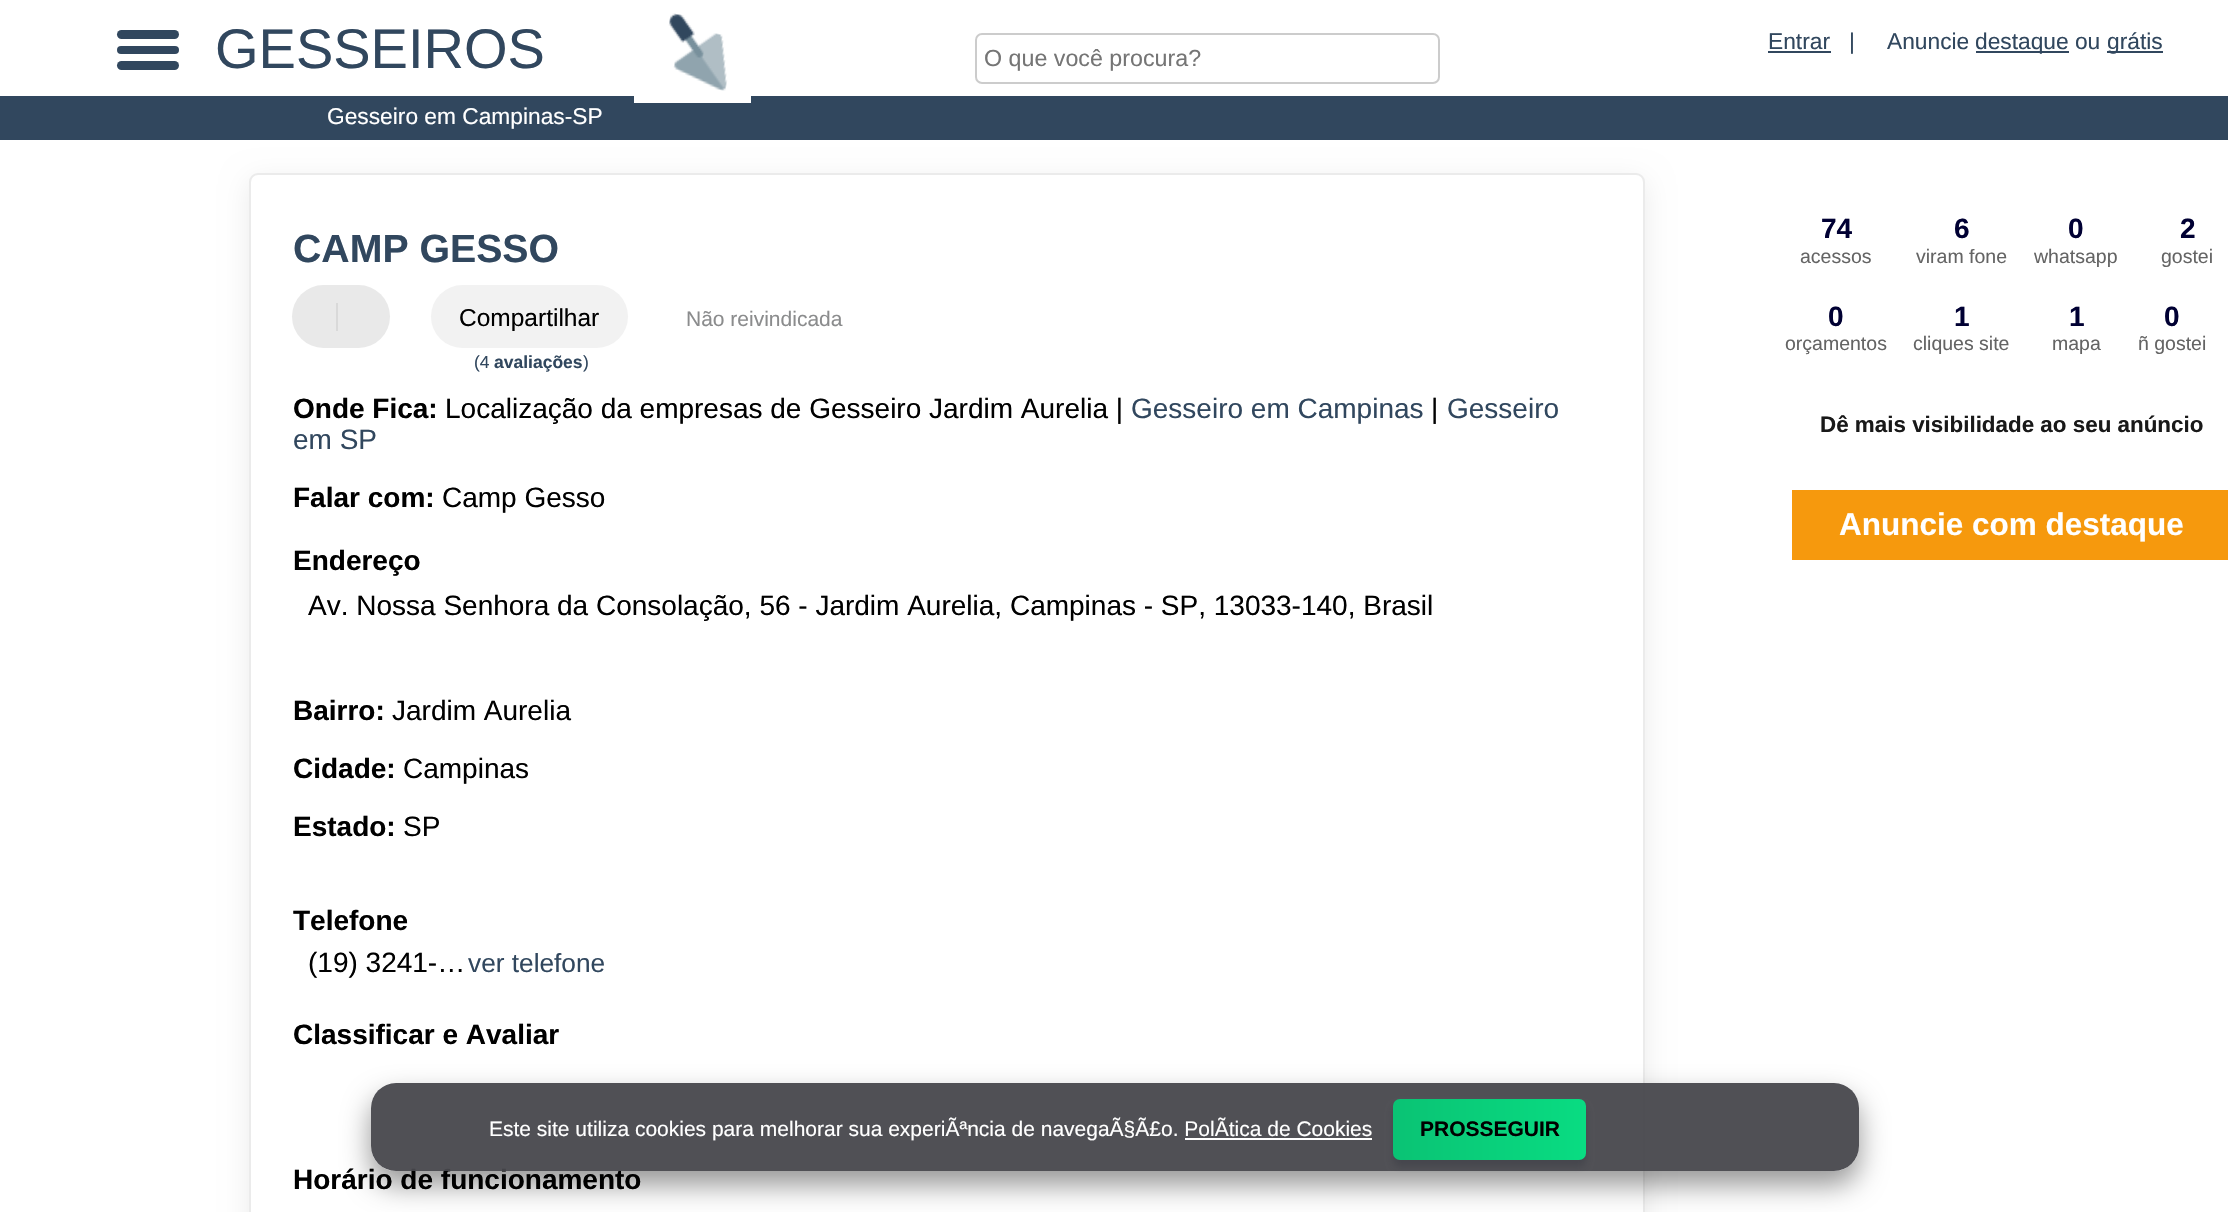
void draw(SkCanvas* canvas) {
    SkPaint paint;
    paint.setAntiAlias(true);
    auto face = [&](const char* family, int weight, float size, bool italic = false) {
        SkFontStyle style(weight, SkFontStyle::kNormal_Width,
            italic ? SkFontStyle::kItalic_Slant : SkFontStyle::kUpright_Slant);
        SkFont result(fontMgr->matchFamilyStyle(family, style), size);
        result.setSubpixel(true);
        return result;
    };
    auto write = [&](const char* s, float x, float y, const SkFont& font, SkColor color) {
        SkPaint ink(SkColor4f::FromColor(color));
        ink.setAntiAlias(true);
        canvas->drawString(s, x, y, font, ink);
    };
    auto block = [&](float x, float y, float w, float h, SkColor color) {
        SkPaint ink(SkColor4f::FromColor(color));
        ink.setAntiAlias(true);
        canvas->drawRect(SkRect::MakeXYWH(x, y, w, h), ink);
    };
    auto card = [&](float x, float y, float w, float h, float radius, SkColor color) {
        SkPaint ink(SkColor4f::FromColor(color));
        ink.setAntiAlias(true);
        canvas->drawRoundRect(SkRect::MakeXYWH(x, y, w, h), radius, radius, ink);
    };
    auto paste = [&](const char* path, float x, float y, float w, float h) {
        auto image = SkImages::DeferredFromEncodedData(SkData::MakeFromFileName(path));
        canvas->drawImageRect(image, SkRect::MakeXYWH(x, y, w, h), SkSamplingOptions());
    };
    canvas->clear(SK_ColorWHITE);
    card(117, 30, 62, 9, 4.5f, SkColorSetRGB(49, 71, 94));
    card(117, 46, 62, 8, 4, SkColorSetRGB(49, 71, 94));
    card(117, 61, 62, 9, 4.5f, SkColorSetRGB(49, 71, 94));
    auto kFont1 = face("Liberation Sans", 400, 56);
    write("GESSEIROS", 215, 68, kFont1, SkColorSetRGB(49, 71, 94));
    paint.setColor(SkColorSetARGB(20, 0, 0, 0));
    paint.setMaskFilter(SkMaskFilter::MakeBlur(kNormal_SkBlurStyle, 14));
    canvas->drawRoundRect(SkRect::MakeXYWH(249, 180, 1396, 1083), 9, 9, paint);
    paint.setMaskFilter(nullptr);
    block(0, 96, 2228, 44, SkColorSetRGB(49, 71, 94));
    paste("pic1.png", 634, 13, 117, 90);
    auto kFont2 = face("Liberation Sans", 400, 22.75f);
    write("Entrar", 1768, 49, kFont2, SkColorSetRGB(49, 71, 94));
    block(1768, 51, 63, 2, SkColorSetRGB(49, 71, 94));
    write("|", 1849, 49, kFont2, SkColorSetRGB(49, 71, 94));
    write("Anuncie", 1887, 49, kFont2, SkColorSetRGB(49, 71, 94));
    block(1976, 51, 93, 2, SkColorSetRGB(49, 71, 94));
    write("destaque ou", 1975, 49, kFont2, SkColorSetRGB(49, 71, 94));
    block(2107, 51, 56, 2, SkColorSetRGB(49, 71, 94));
    write("grátis", 2107, 49, kFont2, SkColorSetRGB(49, 71, 94));
    paint.setStyle(SkPaint::kStroke_Style);
    paint.setStrokeWidth(2);
    paint.setColor(SkColorSetRGB(204, 204, 204));
    canvas->drawRoundRect(SkRect::MakeXYWH(976, 34, 463, 49), 6, 6, paint);
    auto kFont3 = face("Liberation Sans", 400, 23.25f);
    write("O que você procura?", 984, 66, kFont3, SkColorSetRGB(117, 117, 117));
    write("Gesseiro em Campinas-SP", 327, 124, kFont2, SK_ColorWHITE);
    paint.setStyle(SkPaint::kFill_Style);
    paint.setColor(SK_ColorWHITE);
    canvas->drawRoundRect(SkRect::MakeXYWH(250, 174, 1394, 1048), 8, 8, paint);
    paint.setStyle(SkPaint::kStroke_Style);
    paint.setColor(SkColorSetRGB(235, 235, 235));
    canvas->drawRoundRect(SkRect::MakeXYWH(250, 174, 1394, 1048), 8, 8, paint);
    auto kFont4 = face("Liberation Sans", 700, 39.25f);
    write("CAMP GESSO", 293, 262, kFont4, SkColorSetRGB(49, 71, 94));
    card(292, 285, 98, 63, 31.5f, SkColorSetRGB(233, 233, 233));
    block(336, 303, 2, 28, SkColorSetRGB(217, 217, 217));
    card(431, 285, 197, 63, 31.5f, SkColorSetRGB(242, 242, 242));
    auto kFont5 = face("Liberation Sans", 400, 24.5f);
    write("Compartilhar", 459, 326, kFont5, SK_ColorBLACK);
    auto kFont6 = face("Liberation Sans", 400, 21);
    write("Não reivindicada", 686, 326, kFont6, SkColorSetRGB(139, 140, 141));
    auto kFont7 = face("Liberation Sans", 400, 17.5f);
    write("(4", 474, 368, kFont7, SkColorSetRGB(49, 71, 94));
    auto kFont8 = face("Liberation Sans", 700, 17.5f);
    write("avaliações", 494, 368, kFont8, SkColorSetRGB(49, 71, 94));
    write(")", 583, 368, kFont7, SkColorSetRGB(49, 71, 94));
    auto kFont9 = face("Liberation Sans", 700, 28);
    write("Onde Fica:", 293, 418, kFont9, SK_ColorBLACK);
    auto kFont10 = face("Liberation Sans", 400, 28);
    write("Localização da empresas de Gesseiro Jardim Aurelia |", 445, 418, kFont10, SK_ColorBLACK);
    write("Gesseiro em Campinas", 1131, 418, kFont10, SkColorSetRGB(49, 71, 94));
    write("|", 1431, 418, kFont10, SK_ColorBLACK);
    write("Gesseiro", 1447, 418, kFont10, SkColorSetRGB(49, 71, 94));
    write("em SP", 293, 449, kFont10, SkColorSetRGB(49, 71, 94));
    write("Falar com:", 293, 507, kFont9, SK_ColorBLACK);
    write("Camp Gesso", 442, 507, kFont10, SK_ColorBLACK);
    write("Endereço", 293, 570, kFont9, SK_ColorBLACK);
    write("Av. Nossa Senhora da Consolação, 56 - Jardim Aurelia, Campinas - SP, 13033-140, Brasil", 308, 615, kFont10, SK_ColorBLACK);
    write("Bairro:", 293, 720, kFont9, SK_ColorBLACK);
    write("Jardim Aurelia", 392, 720, kFont10, SK_ColorBLACK);
    write("Cidade:", 293, 778, kFont9, SK_ColorBLACK);
    write("Campinas", 403, 778, kFont10, SK_ColorBLACK);
    write("Estado:", 293, 836, kFont9, SK_ColorBLACK);
    write("SP", 403, 836, kFont10, SK_ColorBLACK);
    write("Telefone", 293, 930, kFont9, SK_ColorBLACK);
    write("(19) 3241-…", 308, 972, kFont10, SK_ColorBLACK);
    auto kFont11 = face("Liberation Sans", 400, 26.25f);
    write("ver telefone", 468, 972, kFont11, SkColorSetRGB(49, 71, 94));
    write("Classificar e Avaliar", 293, 1044, kFont9, SK_ColorBLACK);
    write("Horário de funcionamento", 293, 1189, kFont9, SK_ColorBLACK);
    write("74", 1821, 238, kFont9, SkColorSetRGB(0, 0, 51));
    auto kFont12 = face("Liberation Sans", 400, 19.5f);
    write("acessos", 1800, 263, kFont12, SkColorSetRGB(100, 100, 100));
    write("6", 1954, 238, kFont9, SkColorSetRGB(0, 0, 51));
    write("viram fone", 1916, 263, kFont12, SkColorSetRGB(100, 100, 100));
    write("0", 2068, 238, kFont9, SkColorSetRGB(0, 0, 51));
    write("whatsapp", 2034, 263, kFont12, SkColorSetRGB(100, 100, 100));
    write("2", 2180, 238, kFont9, SkColorSetRGB(0, 0, 51));
    write("gostei", 2161, 263, kFont12, SkColorSetRGB(100, 100, 100));
    write("0", 1828, 326, kFont9, SkColorSetRGB(0, 0, 51));
    write("orçamentos", 1785, 350, kFont12, SkColorSetRGB(100, 100, 100));
    write("1", 1954, 326, kFont9, SkColorSetRGB(0, 0, 51));
    write("cliques site", 1913, 350, kFont12, SkColorSetRGB(100, 100, 100));
    write("1", 2069, 326, kFont9, SkColorSetRGB(0, 0, 51));
    write("mapa", 2052, 350, kFont12, SkColorSetRGB(100, 100, 100));
    write("0", 2164, 326, kFont9, SkColorSetRGB(0, 0, 51));
    write("ñ gostei", 2138, 350, kFont12, SkColorSetRGB(100, 100, 100));
    auto kFont13 = face("Liberation Sans", 700, 22.4f);
    write("Dê mais visibilidade ao seu anúncio", 1820, 432, kFont13, SkColorSetRGB(25, 25, 25));
    block(1792, 490, 436, 70, SkColorSetRGB(246, 153, 13));
    auto kFont14 = face("Liberation Sans", 700, 31.5f);
    write("Anuncie com destaque", 1839, 535, kFont14, SK_ColorWHITE);
    canvas->save();
    canvas->clipPath(SkPathBuilder(SkPathFillType::kEvenOdd).moveTo(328, 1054).lineTo(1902, 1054).lineTo(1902, 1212).lineTo(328, 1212).close().moveTo(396, 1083).lineTo(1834, 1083).cubicTo(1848, 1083, 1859, 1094, 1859, 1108).lineTo(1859, 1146).cubicTo(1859, 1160, 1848, 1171, 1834, 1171).lineTo(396, 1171).cubicTo(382, 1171, 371, 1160, 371, 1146).lineTo(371, 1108).cubicTo(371, 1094, 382, 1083, 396, 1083).close().detach(), true);
    paint.setStyle(SkPaint::kFill_Style);
    paint.setColor(SkColorSetARGB(105, 0, 0, 0));
    paint.setMaskFilter(SkMaskFilter::MakeBlur(kNormal_SkBlurStyle, 14));
    canvas->drawRoundRect(SkRect::MakeXYWH(371, 1097, 1488, 88), 25, 25, paint);
    paint.setMaskFilter(nullptr);
    canvas->restore();
    card(371, 1083, 1488, 88, 25, SkColorSetARGB(242, 71, 71, 76));
    write("Este site utiliza cookies para melhorar sua experiÃªncia de navegaÃ§Ã£o. PolÃtica de Cookies", 489, 1136, kFont6, SK_ColorWHITE);
    block(1185, 1138, 187, 2, SK_ColorWHITE);
    paint.setColor(SkColorSetARGB(64, 36, 41, 51));
    paint.setMaskFilter(SkMaskFilter::MakeBlur(kNormal_SkBlurStyle, 3.5f));
    canvas->drawRoundRect(SkRect::MakeXYWH(1393, 1106, 193, 61), 7, 7, paint);
    paint.setMaskFilter(nullptr);
    {
        const SkColor colors[] = {SkColorSetRGB(10, 195, 116), SkColorSetRGB(9, 220, 130)};
        const float stops[] = {0, 1};
        const SkPoint ends[] = {{1393, 1130}, {1586, 1130}};
        paint.setShader(SkGradientShader::MakeLinear(ends, colors, stops, 2, SkTileMode::kClamp));
        paint.setAlpha(255);
    }
    canvas->drawRoundRect(SkRect::MakeXYWH(1393, 1099, 193, 61), 7, 7, paint);
    auto kFont15 = face("Liberation Sans", 700, 21);
    write("PROSSEGUIR", 1420, 1136, kFont15, SK_ColorBLACK);
}
